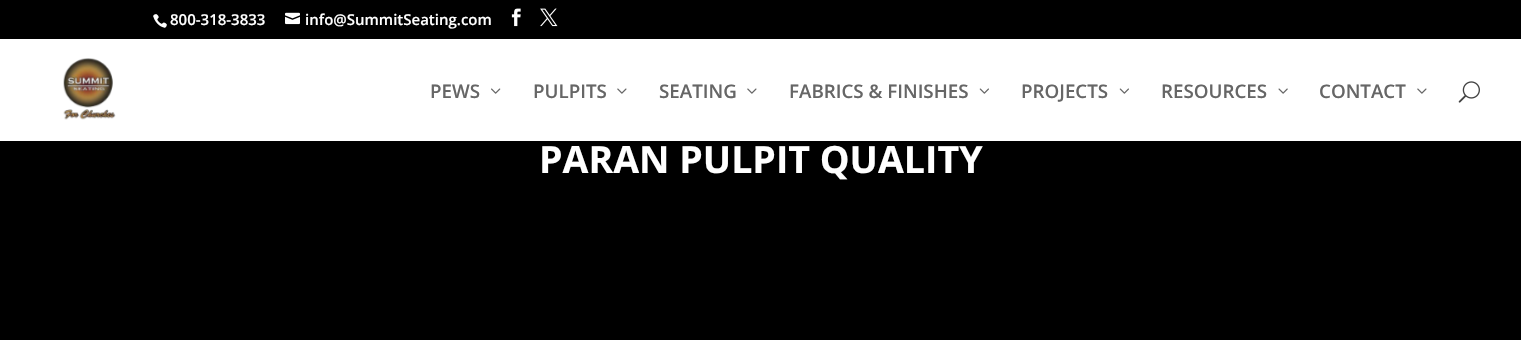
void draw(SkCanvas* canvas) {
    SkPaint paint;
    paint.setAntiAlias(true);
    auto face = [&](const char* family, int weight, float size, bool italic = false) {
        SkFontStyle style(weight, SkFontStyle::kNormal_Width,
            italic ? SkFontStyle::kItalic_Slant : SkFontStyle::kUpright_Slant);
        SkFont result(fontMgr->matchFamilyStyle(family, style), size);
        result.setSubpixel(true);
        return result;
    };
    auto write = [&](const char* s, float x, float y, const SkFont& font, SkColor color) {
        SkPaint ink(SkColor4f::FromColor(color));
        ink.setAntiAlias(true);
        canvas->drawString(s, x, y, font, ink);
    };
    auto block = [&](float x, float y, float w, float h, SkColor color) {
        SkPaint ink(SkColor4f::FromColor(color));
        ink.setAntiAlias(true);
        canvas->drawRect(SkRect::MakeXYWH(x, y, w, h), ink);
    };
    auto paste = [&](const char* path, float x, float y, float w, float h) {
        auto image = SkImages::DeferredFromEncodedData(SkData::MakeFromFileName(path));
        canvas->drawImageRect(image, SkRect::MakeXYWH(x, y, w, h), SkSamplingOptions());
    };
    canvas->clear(SK_ColorBLACK);
    paste("pic1.png", 153, 14, 14, 14);
    auto kFont1 = face("Open Sans", 600, 15);
    write("800-318-3833", 170, 25, kFont1, SK_ColorWHITE);
    paste("pic2.png", 285, 12, 15, 13);
    write("info@SummitSeating.com", 305, 25, kFont1, SK_ColorWHITE);
    paste("pic3.png", 511, 8, 10, 19);
    paste("pic4.png", 540, 8, 18, 19);
    block(0, 39, 1521, 102, SK_ColorWHITE);
    paste("pic5.png", 63, 58, 53, 62);
    auto kFont2 = face("Open Sans", 600, 18.75f);
    write("PEWS", 430, 98, kFont2, SkColorSetRGB(102, 102, 102));
    paste("pic6.png", 491, 88, 10, 6);
    write("PULPITS", 533, 98, kFont2, SkColorSetRGB(102, 102, 102));
    paste("pic7.png", 617, 88, 10, 6);
    write("SEATING", 659, 98, kFont2, SkColorSetRGB(102, 102, 102));
    paste("pic7.png", 747, 88, 10, 6);
    write("FABRICS & FINISHES", 789, 98, kFont2, SkColorSetRGB(102, 102, 102));
    paste("pic8.png", 979, 88, 10, 6);
    write("PROJECTS", 1021, 98, kFont2, SkColorSetRGB(102, 102, 102));
    paste("pic8.png", 1119, 88, 10, 6);
    write("RESOURCES", 1161, 98, kFont2, SkColorSetRGB(102, 102, 102));
    paste("pic9.png", 1278, 88, 10, 6);
    write("CONTACT", 1319, 98, kFont2, SkColorSetRGB(102, 102, 102));
    paste("pic7.png", 1417, 88, 10, 6);
    paste("pic10.png", 1458, 81, 22, 22);
    auto kFont3 = face("Open Sans", 700, 37.5f);
    write("PARAN PULPIT QUALITY", 539, 173, kFont3, SK_ColorWHITE);
}
